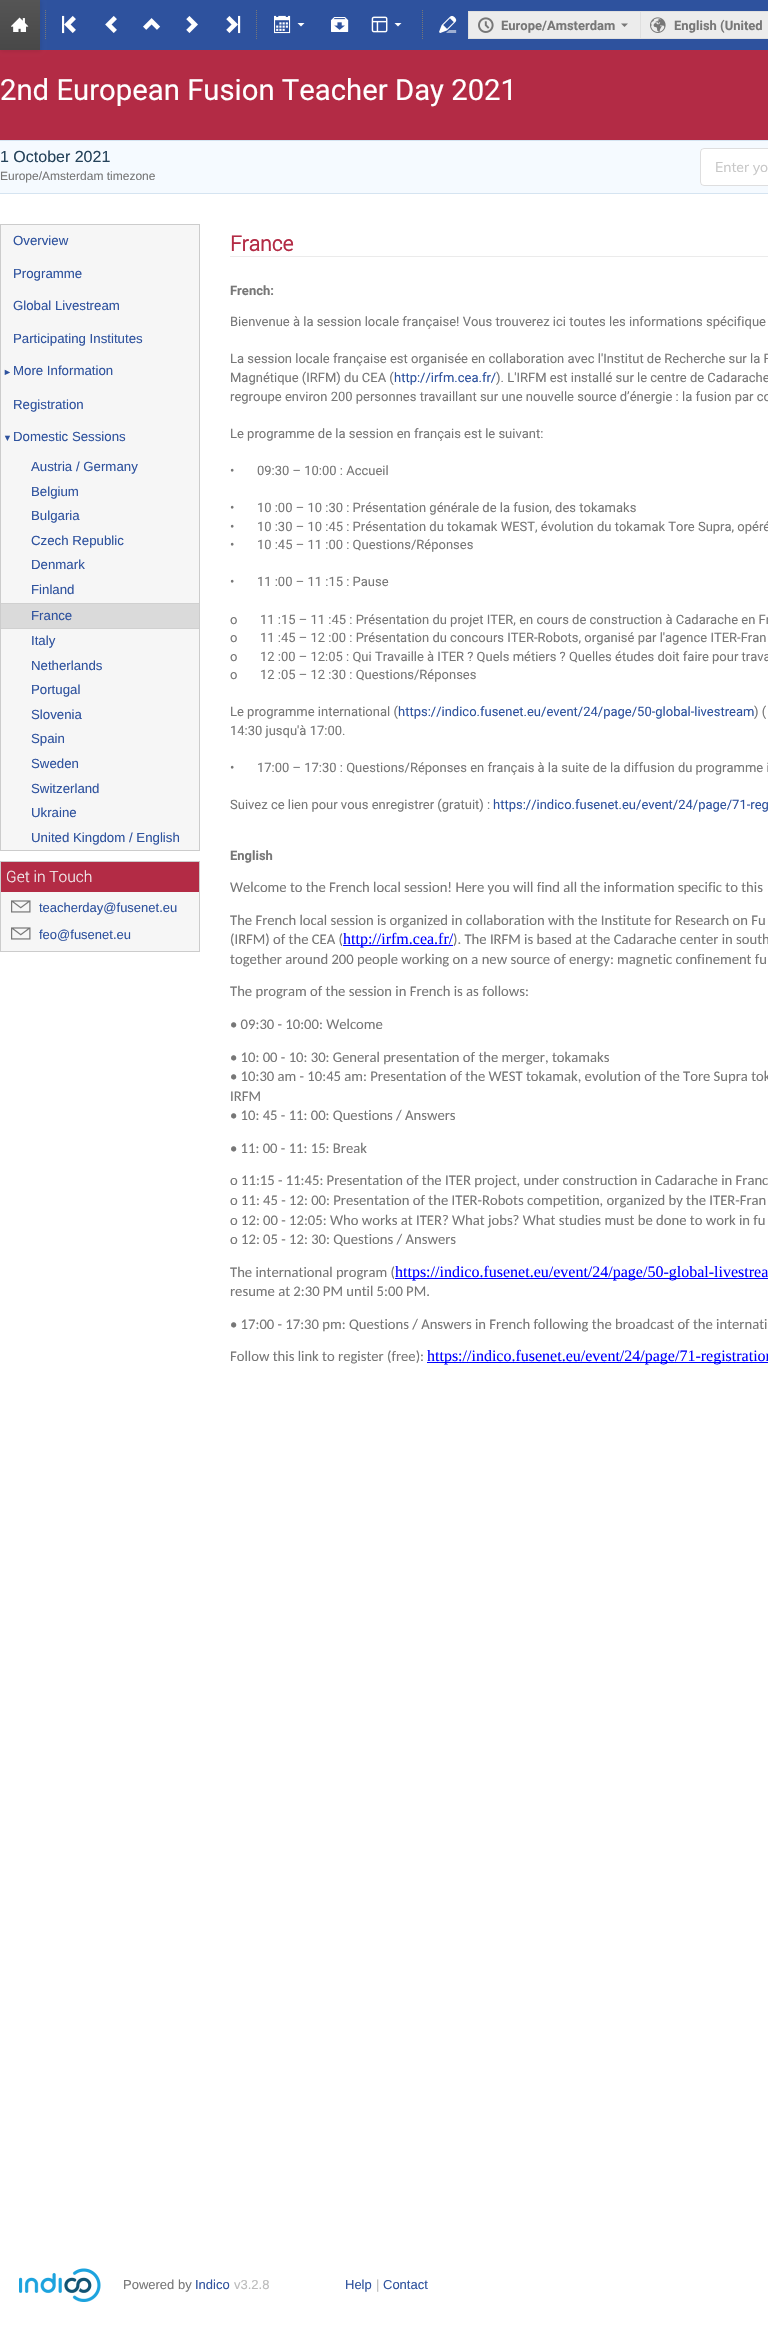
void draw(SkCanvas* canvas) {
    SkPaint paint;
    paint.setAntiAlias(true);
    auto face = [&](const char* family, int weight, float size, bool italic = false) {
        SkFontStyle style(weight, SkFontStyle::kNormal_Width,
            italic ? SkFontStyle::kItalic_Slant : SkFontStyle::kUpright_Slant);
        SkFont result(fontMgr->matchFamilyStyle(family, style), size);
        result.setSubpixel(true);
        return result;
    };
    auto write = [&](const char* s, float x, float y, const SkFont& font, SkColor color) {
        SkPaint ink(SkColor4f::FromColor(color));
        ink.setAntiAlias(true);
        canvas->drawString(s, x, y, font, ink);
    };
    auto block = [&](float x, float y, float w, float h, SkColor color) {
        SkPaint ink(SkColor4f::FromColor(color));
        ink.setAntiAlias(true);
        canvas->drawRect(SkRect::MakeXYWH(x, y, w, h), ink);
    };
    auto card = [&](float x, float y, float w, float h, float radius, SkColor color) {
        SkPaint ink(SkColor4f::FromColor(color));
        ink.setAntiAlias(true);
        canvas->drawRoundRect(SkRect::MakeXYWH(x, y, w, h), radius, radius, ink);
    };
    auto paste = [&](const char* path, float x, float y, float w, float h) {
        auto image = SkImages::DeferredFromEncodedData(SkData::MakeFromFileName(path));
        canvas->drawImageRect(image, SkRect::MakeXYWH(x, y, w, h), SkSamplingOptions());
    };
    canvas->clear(SK_ColorWHITE);
    block(40, 0, 728, 50, SkColorSetRGB(46, 82, 158));
    block(0, 50, 768, 90, SkColorSetRGB(179, 43, 69));
    paint.setColor(SkColorSetARGB(26, 20, 20, 20));
    paint.setMaskFilter(SkMaskFilter::MakeBlur(kNormal_SkBlurStyle, 2));
    canvas->drawRect(SkRect::MakeXYWH(1, 1, 40, 50), paint);
    paint.setMaskFilter(nullptr);
    {
        const SkColor colors[] = {SkColorSetRGB(85, 85, 85), SkColorSetRGB(72, 72, 72)};
        const float stops[] = {0, 1};
        const SkPoint ends[] = {{20, 0}, {20, 50}};
        paint.setShader(SkGradientShader::MakeLinear(ends, colors, stops, 2, SkTileMode::kClamp));
        paint.setAlpha(255);
    }
    canvas->drawRect(SkRect::MakeXYWH(0, 0, 40, 50), paint);
    paste("pic1.png", 11, 17, 18, 15);
    paint.setStyle(SkPaint::kStroke_Style);
    paint.setStrokeWidth(1);
    paint.setShader(nullptr);
    paint.setColor(SkColorSetRGB(119, 119, 119));
    paint.setPathEffect(SkDashPathEffect::Make({{1, 1}}, 0));
    canvas->drawPath(SkPathBuilder().moveTo(45.5f, 10).lineTo(45.5f, 40).detach(), paint);
    paint.setPathEffect(nullptr);
    paste("pic2.png", 62, 15, 14, 19);
    paste("pic3.png", 105, 16, 12, 17);
    paste("pic4.png", 143, 18, 18, 12);
    paste("pic5.png", 186, 16, 12, 17);
    paste("pic6.png", 226, 15, 15, 19);
    paint.setPathEffect(SkDashPathEffect::Make({{1, 1}}, 0));
    canvas->drawPath(SkPathBuilder().moveTo(256.5f, 10).lineTo(256.5f, 40).detach(), paint);
    paint.setPathEffect(nullptr);
    paste("pic7.png", 274, 15, 17, 19);
    paint.setStyle(SkPaint::kFill_Style);
    paint.setColor(SK_ColorWHITE);
    canvas->drawPath(SkPathBuilder().moveTo(297.5f, 23).lineTo(301, 26.5f).lineTo(304.5f, 23).close().detach(), paint);
    paste("pic8.png", 331, 17, 18, 15);
    paste("pic9.png", 371, 16, 17, 17);
    canvas->drawPath(SkPathBuilder().moveTo(394.5f, 23).lineTo(398, 26.5f).lineTo(401.5f, 23).close().detach(), paint);
    paint.setStyle(SkPaint::kStroke_Style);
    paint.setColor(SkColorSetRGB(119, 119, 119));
    paint.setPathEffect(SkDashPathEffect::Make({{1, 1}}, 0));
    canvas->drawPath(SkPathBuilder().moveTo(422.5f, 10).lineTo(422.5f, 40).detach(), paint);
    paint.setPathEffect(nullptr);
    paste("pic10.png", 439, 15, 18, 18);
    block(469, 12, 171, 26, SkColorSetRGB(236, 236, 236));
    block(468, 11, 172, 1, SkColorSetRGB(223, 223, 223));
    block(468, 38, 172, 1, SkColorSetRGB(223, 223, 223));
    block(468, 11, 1, 28, SkColorSetRGB(223, 223, 223));
    paste("pic11.png", 478, 17, 16, 16);
    auto kFont1 = face("Roboto", 700, 13);
    write("Europe/Amsterdam", 501, 30, kFont1, SkColorSetRGB(119, 119, 119));
    paint.setStyle(SkPaint::kFill_Style);
    canvas->drawPath(SkPathBuilder().moveTo(621, 23.5f).lineTo(624.5f, 27).lineTo(628, 23.5f).close().detach(), paint);
    paint.setColor(SkColorSetRGB(236, 236, 236));
    canvas->drawRect(SkRect::MakeXYWH(640.5f, 11.5f, 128, 27), paint);
    paint.setStyle(SkPaint::kStroke_Style);
    paint.setColor(SkColorSetRGB(223, 223, 223));
    canvas->drawRect(SkRect::MakeXYWH(640.5f, 11.5f, 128, 27), paint);
    paste("pic12.png", 650, 17, 16, 16);
    write("English (United", 674, 30, kFont1, SkColorSetRGB(119, 119, 119));
    auto kFont2 = face("Roboto", 400, 29.3f);
    write("2nd European Fusion Teacher Day 2021", 0, 100, kFont2, SK_ColorWHITE);
    block(0, 141, 768, 52, SkColorSetRGB(245, 250, 255));
    block(0, 140, 768, 1, SkColorSetRGB(213, 228, 241));
    block(0, 193, 768, 1, SkColorSetRGB(213, 228, 241));
    auto kFont3 = face("Liberation Sans", 400, 16);
    write("1 October 2021", 0, 162, kFont3, SkColorSetRGB(36, 66, 90));
    auto kFont4 = face("Liberation Sans", 400, 12);
    write("Europe/Amsterdam timezone", 0, 180, kFont4, SkColorSetRGB(119, 119, 119));
    card(700, 148, 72, 38, 4, SK_ColorWHITE);
    paint.setColor(SkColorSetARGB(38, 34, 36, 38));
    canvas->drawRoundRect(SkRect::MakeXYWH(700.5f, 148.5f, 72, 37), 3.5f, 3.5f, paint);
    auto kFont5 = face("Mulish", 400, 14);
    write("Enter yo", 715, 172, kFont5, SkColorSetRGB(199, 199, 199));
    paint.setStyle(SkPaint::kFill_Style);
    paint.setColor(SkColorSetRGB(246, 246, 246));
    canvas->drawRect(SkRect::MakeXYWH(0.5f, 224.5f, 199, 626), paint);
    paint.setStyle(SkPaint::kStroke_Style);
    paint.setColor(SkColorSetRGB(204, 204, 204));
    canvas->drawRect(SkRect::MakeXYWH(0.5f, 224.5f, 199, 626), paint);
    auto kFont6 = face("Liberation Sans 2", 400, 13.25f);
    write("Overview", 13, 245, kFont6, SkColorSetRGB(46, 82, 158));
    write("Programme", 13, 278, kFont6, SkColorSetRGB(46, 82, 158));
    write("Global Livestream", 13, 310, kFont6, SkColorSetRGB(46, 82, 158));
    write("Participating Institutes", 13, 343, kFont6, SkColorSetRGB(46, 82, 158));
    auto kFont7 = face("Liberation Sans 2", 400, 9);
    write("►", 3, 375, kFont7, SkColorSetRGB(46, 82, 158));
    write("More Information", 13, 375, kFont6, SkColorSetRGB(46, 82, 158));
    write("Registration", 13, 409, kFont6, SkColorSetRGB(46, 82, 158));
    write("▼", 3, 441, kFont7, SkColorSetRGB(46, 82, 158));
    write("Domestic Sessions", 13, 441, kFont6, SkColorSetRGB(46, 82, 158));
    write("Austria / Germany", 31, 471, kFont6, SkColorSetRGB(46, 82, 158));
    write("Belgium", 31, 496, kFont6, SkColorSetRGB(46, 82, 158));
    write("Bulgaria", 31, 520, kFont6, SkColorSetRGB(46, 82, 158));
    write("Czech Republic", 31, 545, kFont6, SkColorSetRGB(46, 82, 158));
    write("Denmark", 31, 569, kFont6, SkColorSetRGB(46, 82, 158));
    write("Finland", 31, 594, kFont6, SkColorSetRGB(46, 82, 158));
    block(1, 604, 198, 24, SkColorSetRGB(218, 218, 218));
    block(1, 603, 198, 1, SkColorSetRGB(208, 208, 208));
    block(1, 628, 198, 1, SkColorSetRGB(208, 208, 208));
    write("France", 31, 620, kFont6, SkColorSetRGB(46, 82, 158));
    write("Italy", 31, 645, kFont6, SkColorSetRGB(46, 82, 158));
    write("Netherlands", 31, 670, kFont6, SkColorSetRGB(46, 82, 158));
    write("Portugal", 31, 694, kFont6, SkColorSetRGB(46, 82, 158));
    write("Slovenia", 31, 719, kFont6, SkColorSetRGB(46, 82, 158));
    write("Spain", 31, 743, kFont6, SkColorSetRGB(46, 82, 158));
    write("Sweden", 31, 768, kFont6, SkColorSetRGB(46, 82, 158));
    write("Switzerland", 31, 793, kFont6, SkColorSetRGB(46, 82, 158));
    write("Ukraine", 31, 817, kFont6, SkColorSetRGB(46, 82, 158));
    write("United Kingdom / English", 31, 842, kFont6, SkColorSetRGB(46, 82, 158));
    block(1, 892, 198, 59, SkColorSetRGB(246, 246, 246));
    canvas->drawRect(SkRect::MakeXYWH(0.5f, 861.5f, 199, 90), paint);
    block(1, 862, 198, 30, SkColorSetRGB(179, 43, 69));
    auto kFont8 = face("Roboto", 300, 15.5f);
    write("Get in Touch", 6, 882, kFont8, SkColorSetRGB(243, 243, 243));
    paste("pic13.png", 11, 900, 20, 13);
    auto kFont9 = face("Liberation Sans", 400, 13);
    write("teacherday@fusenet.eu", 39, 912, kFont9, SkColorSetRGB(46, 82, 158));
    paste("pic13.png", 11, 927, 20, 13);
    write("feo@fusenet.eu", 39, 939, kFont9, SkColorSetRGB(46, 82, 158));
    block(230, 256, 538, 1, SkColorSetRGB(235, 235, 235));
    auto kFont10 = face("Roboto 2", 700, 21);
    write("France", 230, 251, kFont10, SkColorSetRGB(179, 43, 69));
    write("French:", 230, 295, kFont1, SkColorSetRGB(119, 119, 119));
    auto kFont11 = face("Roboto", 400, 13);
    write("Bienvenue à la session locale française! Vous trouverez ici toutes les informations spécifique", 230, 326, kFont11, SkColorSetRGB(119, 119, 119));
    write("La session locale française est organisée en collaboration avec l'Institut de Recherche sur la F", 230, 363, kFont11, SkColorSetRGB(119, 119, 119));
    write("Magnétique (IRFM) du CEA (", 230, 382, kFont11, SkColorSetRGB(119, 119, 119));
    write("http://irfm.cea.fr/", 394, 382, kFont11, SkColorSetRGB(46, 82, 158));
    write("). L'IRFM est installé sur le centre de Cadarache", 496, 382, kFont11, SkColorSetRGB(119, 119, 119));
    write("regroupe environ 200 personnes travaillant sur une nouvelle source d’énergie : la fusion par co", 230, 401, kFont11, SkColorSetRGB(119, 119, 119));
    write("Le programme de la session en français est le suivant:", 230, 438, kFont11, SkColorSetRGB(119, 119, 119));
    write("•       09:30 – 10:00 : Accueil", 230, 475, kFont11, SkColorSetRGB(119, 119, 119));
    write("•       10 :00 – 10 :30 : Présentation générale de la fusion, des tokamaks", 230, 512, kFont11, SkColorSetRGB(119, 119, 119));
    write("•       10 :30 – 10 :45 : Présentation du tokamak WEST, évolution du tokamak Tore Supra, opéré", 230, 531, kFont11, SkColorSetRGB(119, 119, 119));
    write("•       10 :45 – 11 :00 : Questions/Réponses", 230, 549, kFont11, SkColorSetRGB(119, 119, 119));
    write("•       11 :00 – 11 :15 : Pause", 230, 586, kFont11, SkColorSetRGB(119, 119, 119));
    write("o       11 :15 – 11 :45 : Présentation du projet ITER, en cours de construction à Cadarache en Fr", 230, 624, kFont11, SkColorSetRGB(119, 119, 119));
    write("o       11 :45 – 12 :00 : Présentation du concours ITER-Robots, organisé par l'agence ITER-Fran", 230, 642, kFont11, SkColorSetRGB(119, 119, 119));
    write("o       12 :00 – 12:05 : Qui Travaille à ITER ? Quels métiers ? Quelles études doit faire pour trava", 230, 661, kFont11, SkColorSetRGB(119, 119, 119));
    write("o       12 :05 – 12 :30 : Questions/Réponses", 230, 679, kFont11, SkColorSetRGB(119, 119, 119));
    write("Le programme international (", 230, 716, kFont11, SkColorSetRGB(119, 119, 119));
    write("https://indico.fusenet.eu/event/24/page/50-global-livestream", 398, 716, kFont11, SkColorSetRGB(46, 82, 158));
    write(") (", 754, 716, kFont11, SkColorSetRGB(119, 119, 119));
    write("14:30 jusqu'à 17:00.", 230, 735, kFont11, SkColorSetRGB(119, 119, 119));
    write("•       17:00 – 17:30 : Questions/Réponses en français à la suite de la diffusion du programme i", 230, 772, kFont11, SkColorSetRGB(119, 119, 119));
    write("Suivez ce lien pour vous enregistrer (gratuit) :", 230, 809, kFont11, SkColorSetRGB(119, 119, 119));
    write("https://indico.fusenet.eu/event/24/page/71-reg", 493, 809, kFont11, SkColorSetRGB(46, 82, 158));
    write("English", 230, 860, kFont1, SkColorSetRGB(119, 119, 119));
    auto kFont12 = face("Carlito", 400, 14.65f);
    write("Welcome to the French local session! Here you will find all the information specific to this", 230, 892, kFont12, SkColorSetRGB(119, 119, 119));
    write("The French local session is organized in collaboration with the Institute for Research on Fu", 230, 925, kFont12, SkColorSetRGB(119, 119, 119));
    write("(IRFM) of the CEA (", 230, 944, kFont12, SkColorSetRGB(119, 119, 119));
    block(343, 945, 110, 1, SkColorSetRGB(0, 0, 255));
    auto kFont13 = face("Liberation Serif", 400, 16);
    write("http://irfm.cea.fr/", 343, 944, kFont13, SkColorSetRGB(0, 0, 255));
    write("). The IRFM is based at the Cadarache center in south", 453, 944, kFont12, SkColorSetRGB(119, 119, 119));
    write("together around 200 people working on a new source of energy: magnetic confinement fu", 230, 964, kFont12, SkColorSetRGB(119, 119, 119));
    write("The program of the session in French is as follows:", 230, 996, kFont12, SkColorSetRGB(119, 119, 119));
    write("• 09:30 - 10:00: Welcome", 230, 1029, kFont12, SkColorSetRGB(119, 119, 119));
    write("• 10: 00 - 10: 30: General presentation of the merger, tokamaks", 230, 1062, kFont12, SkColorSetRGB(119, 119, 119));
    write("• 10:30 am - 10:45 am: Presentation of the WEST tokamak, evolution of the Tore Supra tok", 230, 1081, kFont12, SkColorSetRGB(119, 119, 119));
    write("IRFM", 230, 1101, kFont12, SkColorSetRGB(119, 119, 119));
    write("• 10: 45 - 11: 00: Questions / Answers", 230, 1120, kFont12, SkColorSetRGB(119, 119, 119));
    write("• 11: 00 - 11: 15: Break", 230, 1153, kFont12, SkColorSetRGB(119, 119, 119));
    write("o 11:15 - 11:45: Presentation of the ITER project, under construction in Cadarache in Franc", 230, 1185, kFont12, SkColorSetRGB(119, 119, 119));
    write("o 11: 45 - 12: 00: Presentation of the ITER-Robots competition, organized by the ITER-Fran", 230, 1205, kFont12, SkColorSetRGB(119, 119, 119));
    write("o 12: 00 - 12:05: Who works at ITER? What jobs? What studies must be done to work in fu", 230, 1225, kFont12, SkColorSetRGB(119, 119, 119));
    write("o 12: 05 - 12: 30: Questions / Answers", 230, 1244, kFont12, SkColorSetRGB(119, 119, 119));
    write("The international program (", 230, 1277, kFont12, SkColorSetRGB(119, 119, 119));
    block(395, 1278, 373, 1, SkColorSetRGB(0, 0, 255));
    write("https://indico.fusenet.eu/event/24/page/50-global-livestrea", 395, 1277, kFont13, SkColorSetRGB(0, 0, 255));
    write("resume at 2:30 PM until 5:00 PM.", 230, 1296, kFont12, SkColorSetRGB(119, 119, 119));
    write("• 17:00 - 17:30 pm: Questions / Answers in French following the broadcast of the internati", 230, 1329, kFont12, SkColorSetRGB(119, 119, 119));
    write("Follow this link to register (free):", 230, 1361, kFont12, SkColorSetRGB(119, 119, 119));
    block(427, 1362, 341, 1, SkColorSetRGB(0, 0, 255));
    write("https://indico.fusenet.eu/event/24/page/71-registration", 427, 1361, kFont13, SkColorSetRGB(0, 0, 255));
    paste("pic14.png", 19, 2268, 82, 34);
    write("Powered by", 123, 2289, kFont9, SkColorSetRGB(119, 119, 119));
    write("Indico", 195, 2289, kFont9, SkColorSetRGB(46, 82, 158));
    write("v3.2.8", 234, 2289, kFont9, SkColorSetRGB(187, 187, 187));
    write("Help", 345, 2289, kFont9, SkColorSetRGB(46, 82, 158));
    write("|", 376, 2289, kFont9, SkColorSetRGB(187, 187, 187));
    write("Contact", 383, 2289, kFont9, SkColorSetRGB(46, 82, 158));
}
